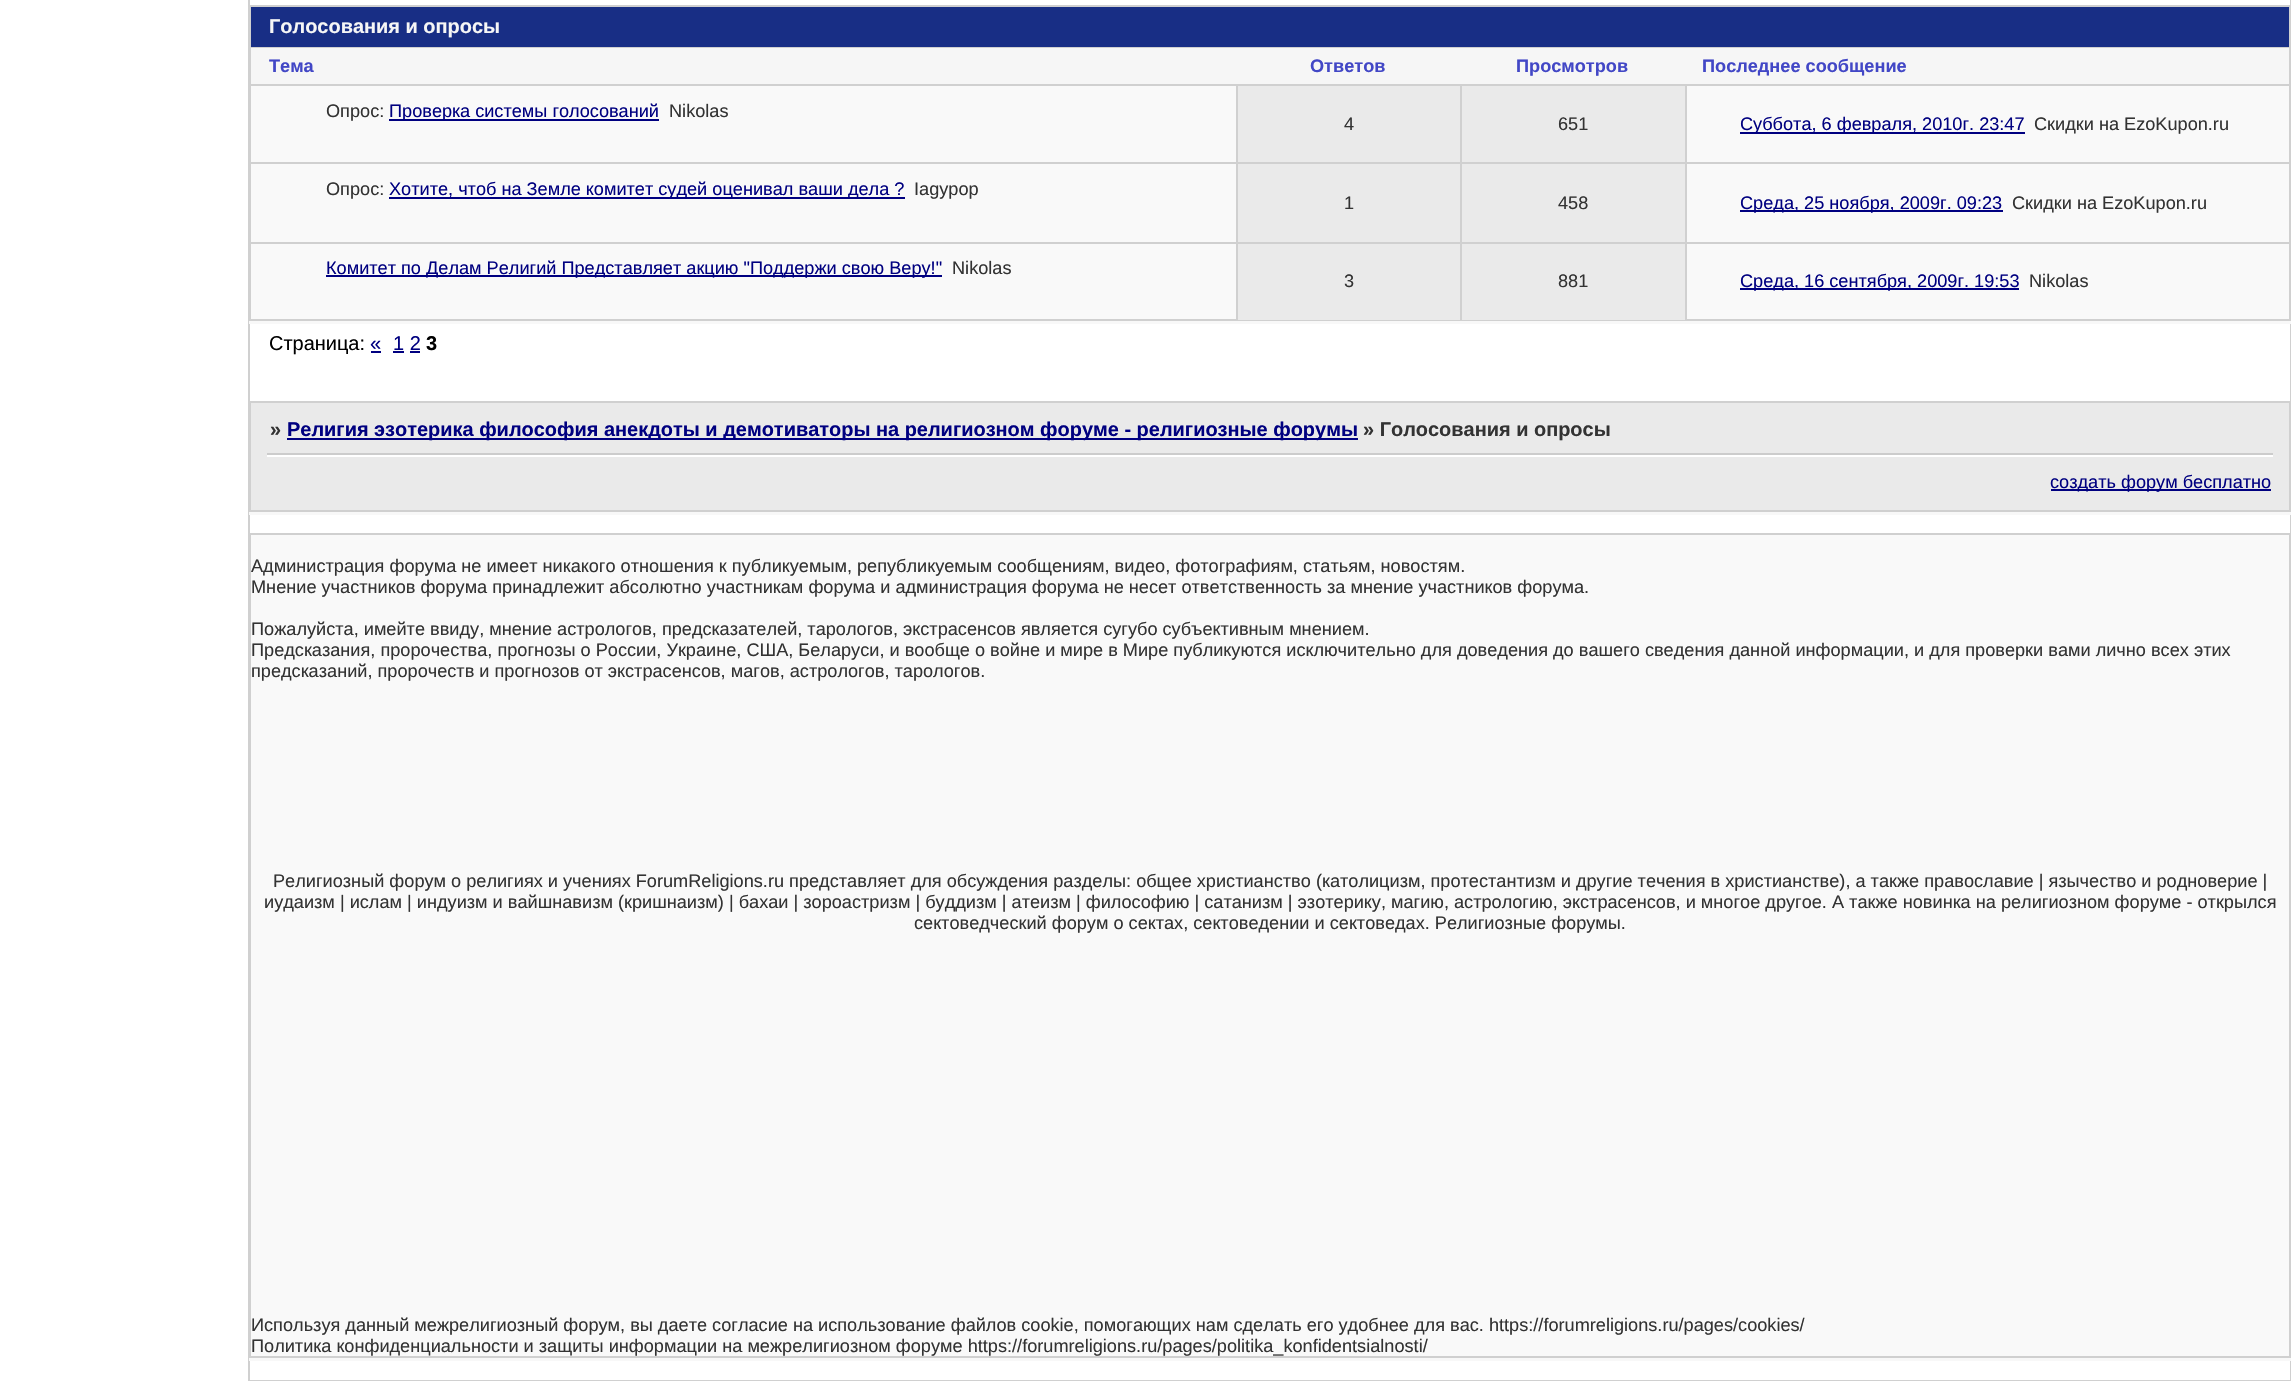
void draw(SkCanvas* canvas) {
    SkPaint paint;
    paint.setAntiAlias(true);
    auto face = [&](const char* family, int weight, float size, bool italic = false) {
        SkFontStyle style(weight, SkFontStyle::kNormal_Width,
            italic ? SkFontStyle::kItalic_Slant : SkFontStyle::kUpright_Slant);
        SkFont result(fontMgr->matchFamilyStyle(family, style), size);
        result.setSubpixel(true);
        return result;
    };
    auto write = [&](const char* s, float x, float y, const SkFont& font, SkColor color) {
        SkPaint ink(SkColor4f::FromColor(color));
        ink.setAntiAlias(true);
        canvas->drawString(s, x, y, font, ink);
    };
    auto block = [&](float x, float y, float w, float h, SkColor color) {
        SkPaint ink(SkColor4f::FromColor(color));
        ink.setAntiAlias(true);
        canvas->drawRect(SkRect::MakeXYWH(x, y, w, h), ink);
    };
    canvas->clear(SK_ColorWHITE);
    paint.setStyle(SkPaint::kStroke_Style);
    paint.setStrokeWidth(2);
    paint.setColor(SkColorSetRGB(208, 208, 208));
    canvas->drawRect(SkRect::MakeXYWH(249, -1, 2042, 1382), paint);
    block(251, 7, 2038, 40, SkColorSetRGB(24, 46, 133));
    block(249, 5, 2042, 2, SkColorSetRGB(208, 208, 208));
    block(2289, 5, 1, 42, SkColorSetRGB(208, 208, 208));
    block(250, 5, 1, 42, SkColorSetRGB(208, 208, 208));
    auto kFont1 = face("Liberation Sans", 700, 19.95f);
    write("Голосования и опросы", 269, 33, kFont1, SkColorSetRGB(246, 246, 246));
    block(249, 321, 2042, 3, SkColorSetRGB(248, 248, 248));
    block(251, 86, 2038, 233, SkColorSetRGB(249, 249, 249));
    canvas->drawRect(SkRect::MakeXYWH(250, 48, 2040, 272), paint);
    block(251, 48, 2038, 36, SkColorSetRGB(246, 246, 246));
    auto kFont2 = face("Liberation Sans", 700, 18.15f);
    write("Тема", 269, 72, kFont2, SkColorSetRGB(66, 71, 198));
    write("Ответов", 1310, 72, kFont2, SkColorSetRGB(66, 71, 198));
    write("Просмотров", 1516, 72, kFont2, SkColorSetRGB(66, 71, 198));
    write("Последнее сообщение", 1702, 72, kFont2, SkColorSetRGB(66, 71, 198));
    auto kFont3 = face("Liberation Sans", 400, 18.15f);
    write("Опрос:", 326, 117, kFont3, SkColorSetRGB(51, 51, 51));
    block(389, 119, 270, 2, SkColorSetRGB(0, 0, 128));
    write("Проверка системы голосований", 389, 117, kFont3, SkColorSetRGB(0, 0, 128));
    write("Nikolas", 669, 117, kFont3, SkColorSetRGB(51, 51, 51));
    block(1238, 86, 222, 76, SkColorSetRGB(234, 234, 234));
    block(251, 84, 2038, 2, SkColorSetRGB(208, 208, 208));
    block(1236, 84, 2, 78, SkColorSetRGB(208, 208, 208));
    write("4", 1344, 130, kFont3, SkColorSetRGB(51, 51, 51));
    block(1462, 86, 223, 76, SkColorSetRGB(234, 234, 234));
    block(1460, 84, 2, 78, SkColorSetRGB(208, 208, 208));
    write("651", 1558, 130, kFont3, SkColorSetRGB(51, 51, 51));
    block(251, 162, 2038, 2, SkColorSetRGB(208, 208, 208));
    block(251, 242, 2038, 2, SkColorSetRGB(208, 208, 208));
    block(1685, 84, 2, 236, SkColorSetRGB(208, 208, 208));
    block(1740, 132, 285, 2, SkColorSetRGB(0, 0, 128));
    write("Суббота, 6 февраля, 2010г. 23:47", 1740, 130, kFont3, SkColorSetRGB(0, 0, 128));
    write("Скидки на EzoKupon.ru", 2034, 130, kFont3, SkColorSetRGB(51, 51, 51));
    write("Опрос:", 326, 195, kFont3, SkColorSetRGB(51, 51, 51));
    block(389, 197, 516, 2, SkColorSetRGB(0, 0, 128));
    write("Хотите, чтоб на Земле комитет судей оценивал ваши дела ?", 389, 195, kFont3, SkColorSetRGB(0, 0, 128));
    write("Iagypop", 914, 195, kFont3, SkColorSetRGB(51, 51, 51));
    block(1238, 164, 222, 78, SkColorSetRGB(234, 234, 234));
    block(1236, 162, 2, 80, SkColorSetRGB(208, 208, 208));
    write("1", 1344, 209, kFont3, SkColorSetRGB(51, 51, 51));
    block(1462, 164, 223, 78, SkColorSetRGB(234, 234, 234));
    block(1460, 162, 2, 80, SkColorSetRGB(208, 208, 208));
    write("458", 1558, 209, kFont3, SkColorSetRGB(51, 51, 51));
    block(1740, 210, 263, 2, SkColorSetRGB(0, 0, 128));
    write("Среда, 25 ноября, 2009г. 09:23", 1740, 209, kFont3, SkColorSetRGB(0, 0, 128));
    write("Скидки на EzoKupon.ru", 2012, 209, kFont3, SkColorSetRGB(51, 51, 51));
    block(326, 275, 616, 2, SkColorSetRGB(0, 0, 128));
    write("Комитет по Делам Религий Представляет акцию \"Поддержи свою Веру!\"", 326, 274, kFont3, SkColorSetRGB(0, 0, 128));
    write("Nikolas", 952, 274, kFont3, SkColorSetRGB(51, 51, 51));
    block(1238, 244, 222, 76, SkColorSetRGB(234, 234, 234));
    block(1236, 242, 2, 78, SkColorSetRGB(208, 208, 208));
    write("3", 1344, 287, kFont3, SkColorSetRGB(51, 51, 51));
    block(1462, 244, 223, 76, SkColorSetRGB(234, 234, 234));
    block(1460, 242, 2, 78, SkColorSetRGB(208, 208, 208));
    write("881", 1558, 287, kFont3, SkColorSetRGB(51, 51, 51));
    block(1740, 288, 279, 2, SkColorSetRGB(0, 0, 128));
    write("Среда, 16 сентября, 2009г. 19:53", 1740, 287, kFont3, SkColorSetRGB(0, 0, 128));
    write("Nikolas", 2029, 287, kFont3, SkColorSetRGB(51, 51, 51));
    auto kFont4 = face("Liberation Sans", 400, 19.95f);
    write("Страница:", 269, 350, kFont4, SK_ColorBLACK);
    write("«", 370, 350, kFont4, SkColorSetRGB(0, 0, 128));
    block(371, 351, 10, 2, SkColorSetRGB(0, 0, 128));
    write("1 2", 393, 350, kFont4, SkColorSetRGB(0, 0, 128));
    block(393, 351, 11, 2, SkColorSetRGB(0, 0, 128));
    write("3", 426, 350, kFont1, SK_ColorBLACK);
    block(410, 351, 10, 2, SkColorSetRGB(0, 0, 128));
    block(249, 401, 2042, 2, SkColorSetRGB(208, 208, 208));
    block(2289, 453, 1, 59, SkColorSetRGB(208, 208, 208));
    block(2289, 401, 1, 55, SkColorSetRGB(208, 208, 208));
    block(249, 510, 2042, 2, SkColorSetRGB(208, 208, 208));
    block(250, 453, 1, 59, SkColorSetRGB(208, 208, 208));
    block(250, 401, 1, 55, SkColorSetRGB(208, 208, 208));
    block(251, 403, 2038, 107, SkColorSetRGB(234, 234, 234));
    write("»", 270, 436, kFont1, SkColorSetRGB(51, 51, 51));
    block(287, 438, 1071, 2, SkColorSetRGB(0, 0, 128));
    write("Религия эзотерика философия анекдоты и демотиваторы на религиозном форуме - религиозные форумы", 287, 436, kFont1, SkColorSetRGB(0, 0, 128));
    write("» Голосования и опросы", 1363, 436, kFont1, SkColorSetRGB(51, 51, 51));
    block(267, 453, 2006, 2, SkColorSetRGB(204, 204, 204));
    block(267, 455, 2006, 2, SK_ColorWHITE);
    block(249, 512, 2042, 3, SkColorSetRGB(248, 248, 248));
    block(2051, 489, 220, 2, SkColorSetRGB(0, 0, 128));
    write("создать форум бесплатно", 2050, 488, kFont3, SkColorSetRGB(0, 0, 128));
    block(249, 1358, 2042, 3, SkColorSetRGB(248, 248, 248));
    paint.setStyle(SkPaint::kFill_Style);
    paint.setColor(SkColorSetRGB(249, 249, 249));
    canvas->drawRect(SkRect::MakeXYWH(250, 534, 2040, 823), paint);
    paint.setStyle(SkPaint::kStroke_Style);
    paint.setColor(SkColorSetRGB(208, 208, 208));
    canvas->drawRect(SkRect::MakeXYWH(250, 534, 2040, 823), paint);
    write("Администрация форума не имеет никакого отношения к публикуемым, републикуемым сообщениям, видео, фотографиям, статьям, новостям.", 251, 572, kFont3, SkColorSetRGB(51, 51, 51));
    write("Мнение участников форума принадлежит абсолютно участникам форума и администрация форума не несет ответственность за мнение участников форума.", 251, 593, kFont3, SkColorSetRGB(51, 51, 51));
    write("Пожалуйста, имейте ввиду, мнение астрологов, предсказателей, тарологов, экстрасенсов является сугубо субъективным мнением.", 251, 635, kFont3, SkColorSetRGB(51, 51, 51));
    write("Предсказания, пророчества, прогнозы о России, Украине, США, Беларуси, и вообще о войне и мире в Мире публикуются исключительно для доведения до вашего сведения данной информации, и для проверки вами лично всех этих", 251, 656, kFont3, SkColorSetRGB(51, 51, 51));
    write("предсказаний, пророчеств и прогнозов от экстрасенсов, магов, астрологов, тарологов.", 251, 677, kFont3, SkColorSetRGB(51, 51, 51));
    write("Религиозный форум о религиях и учениях ForumReligions.ru представляет для обсуждения разделы: общее христианство (католицизм, протестантизм и другие течения в христианстве), а также православие | язычество и родноверие |", 273, 887, kFont3, SkColorSetRGB(51, 51, 51));
    write("иудаизм | ислам | индуизм и вайшнавизм (кришнаизм) | бахаи | зороастризм | буддизм | атеизм | философию | сатанизм | эзотерику, магию, астрологию, экстрасенсов, и многое другое. А также новинка на религиозном форуме - открылся", 264, 908, kFont3, SkColorSetRGB(51, 51, 51));
    write("сектоведческий форум о сектах, сектоведении и сектоведах. Религиозные форумы.", 914, 929, kFont3, SkColorSetRGB(51, 51, 51));
    write("Используя данный межрелигиозный форум, вы даете согласие на использование файлов cookie, помогающих нам сделать его удобнее для вас. https://forumreligions.ru/pages/cookies/", 251, 1331, kFont3, SkColorSetRGB(51, 51, 51));
    write("Политика конфиденциальности и защиты информации на межрелигиозном форуме https://forumreligions.ru/pages/politika_konfidentsialnosti/", 251, 1352, kFont3, SkColorSetRGB(51, 51, 51));
}
